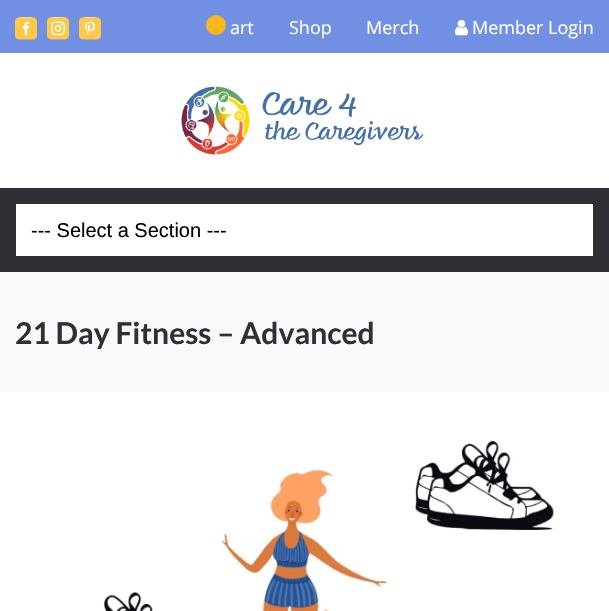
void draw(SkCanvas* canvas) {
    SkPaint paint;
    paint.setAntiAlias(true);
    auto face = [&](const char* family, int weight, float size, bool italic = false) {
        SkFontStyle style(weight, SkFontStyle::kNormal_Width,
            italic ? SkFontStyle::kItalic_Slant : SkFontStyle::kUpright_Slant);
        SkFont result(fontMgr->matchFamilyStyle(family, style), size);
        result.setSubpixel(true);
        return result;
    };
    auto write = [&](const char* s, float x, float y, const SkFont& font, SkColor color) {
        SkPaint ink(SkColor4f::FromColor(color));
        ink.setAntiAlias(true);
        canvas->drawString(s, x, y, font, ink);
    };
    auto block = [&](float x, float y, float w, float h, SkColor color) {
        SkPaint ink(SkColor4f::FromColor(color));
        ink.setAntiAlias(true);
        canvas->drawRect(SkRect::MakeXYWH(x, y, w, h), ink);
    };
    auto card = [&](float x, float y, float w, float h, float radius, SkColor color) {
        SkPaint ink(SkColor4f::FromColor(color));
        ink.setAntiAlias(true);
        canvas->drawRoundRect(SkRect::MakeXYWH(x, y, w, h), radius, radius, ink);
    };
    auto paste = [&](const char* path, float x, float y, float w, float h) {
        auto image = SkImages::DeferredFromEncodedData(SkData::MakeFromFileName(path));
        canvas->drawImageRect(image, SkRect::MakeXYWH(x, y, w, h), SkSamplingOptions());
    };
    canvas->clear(SK_ColorWHITE);
    block(0, 0, 609, 53, SkColorSetRGB(114, 144, 227));
    card(15, 17, 22, 22, 8, SK_ColorWHITE);
    paste("pic1.png", 15, 17, 22, 23);
    card(47, 17, 22, 22, 8, SK_ColorWHITE);
    paste("pic2.png", 47, 17, 22, 23);
    card(79, 17, 22, 22, 8, SK_ColorWHITE);
    paste("pic3.png", 79, 17, 22, 23);
    paint.setColor(SkColorSetRGB(246, 184, 26));
    canvas->drawCircle(216, 25, 10, paint);
    auto kFont1 = face("Open Sans", 400, 18);
    write("art", 230, 34, kFont1, SK_ColorWHITE);
    write("Shop", 289, 34, kFont1, SK_ColorWHITE);
    write("Merch", 366, 34, kFont1, SK_ColorWHITE);
    paste("pic4.png", 455, 19, 13, 17);
    write("Member Login", 472, 34, kFont1, SK_ColorWHITE);
    paste("pic5.png", 181, 86, 243, 69);
    block(0, 188, 609, 84, SkColorSetRGB(47, 48, 53));
    paint.setColor(SK_ColorWHITE);
    canvas->drawRect(SkRect::MakeXYWH(15.5f, 203.5f, 578, 53), paint);
    paint.setStyle(SkPaint::kStroke_Style);
    paint.setStrokeWidth(1);
    paint.setColor(SkColorSetRGB(49, 49, 49));
    canvas->drawRect(SkRect::MakeXYWH(15.5f, 203.5f, 578, 53), paint);
    auto kFont2 = face("Liberation Sans", 400, 20);
    write("--- Select a Section ---", 31, 237, kFont2, SK_ColorBLACK);
    block(0, 272, 609, 120, SkColorSetRGB(249, 249, 249));
    auto kFont3 = face("Lato", 700, 30);
    write("21 Day Fitness – Advanced", 15, 344, kFont3, SkColorSetRGB(47, 48, 53));
    paste("pic6.png", 103, 440, 451, 171);
}
